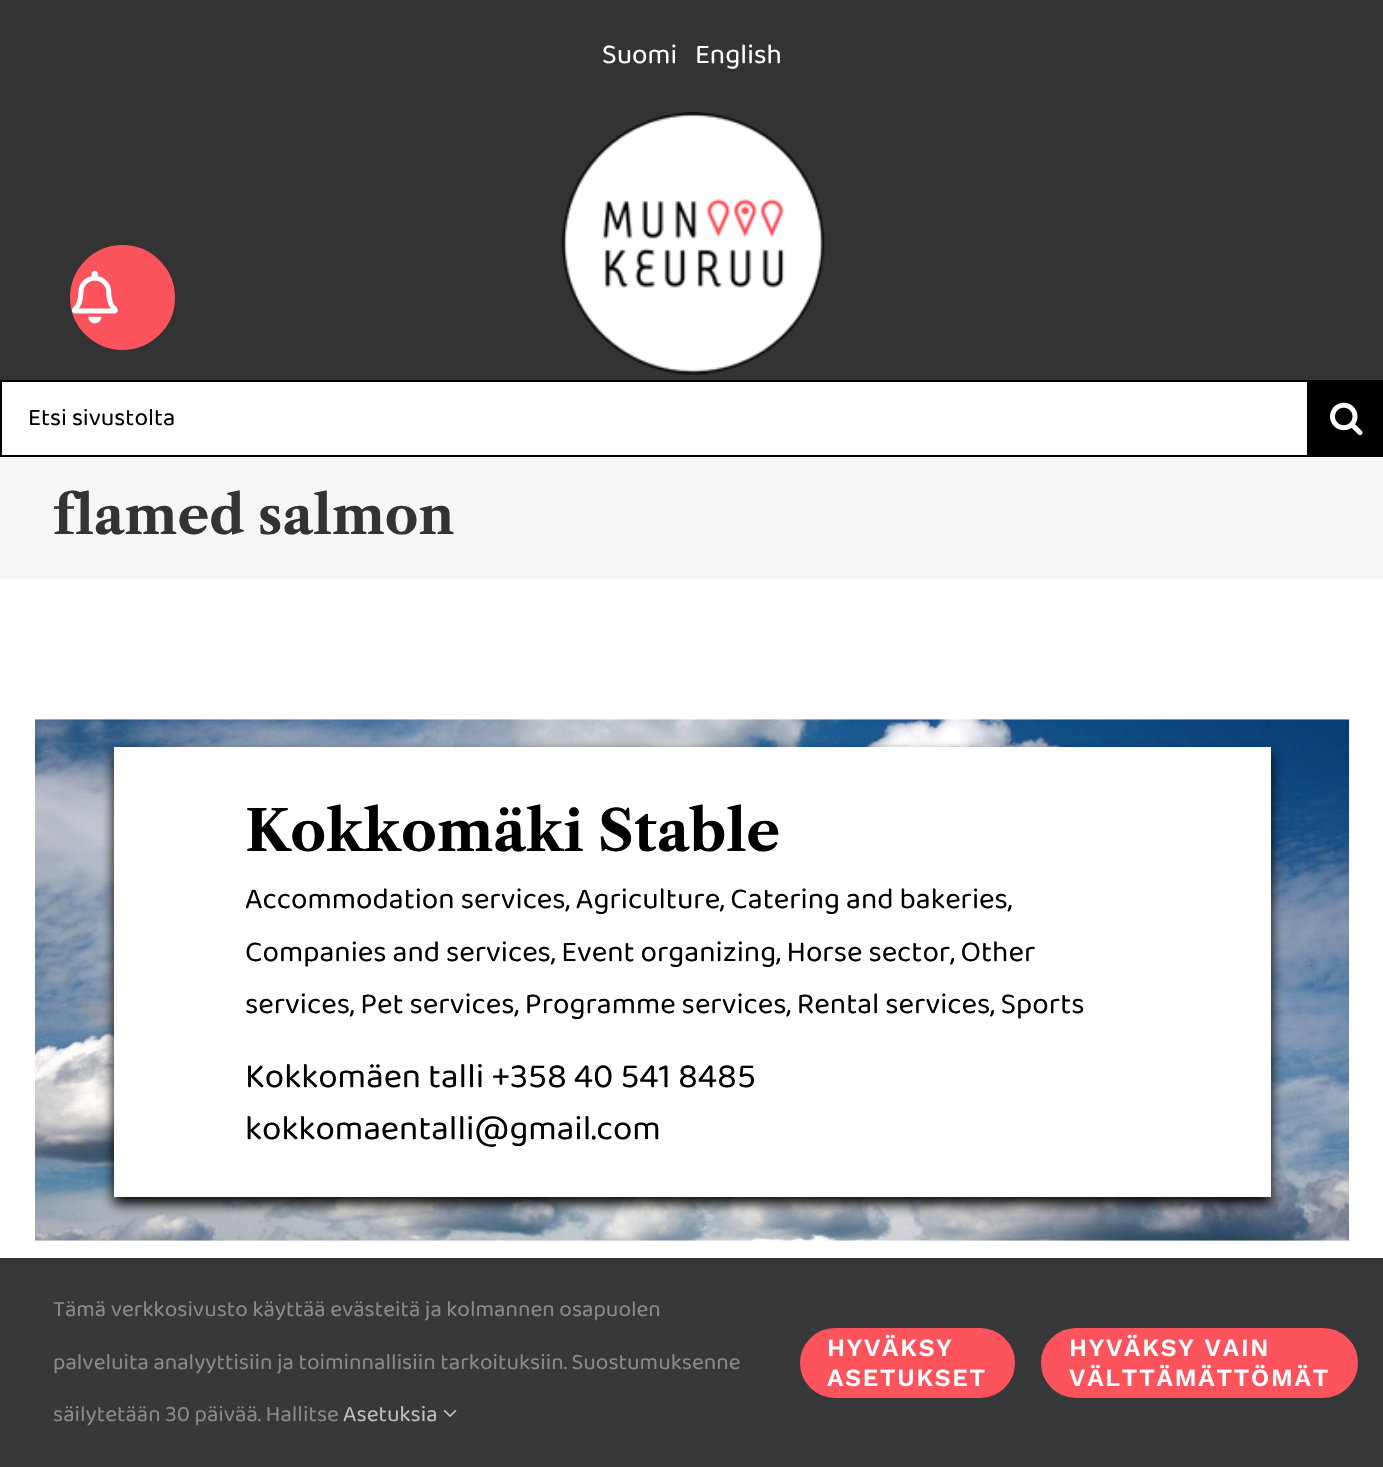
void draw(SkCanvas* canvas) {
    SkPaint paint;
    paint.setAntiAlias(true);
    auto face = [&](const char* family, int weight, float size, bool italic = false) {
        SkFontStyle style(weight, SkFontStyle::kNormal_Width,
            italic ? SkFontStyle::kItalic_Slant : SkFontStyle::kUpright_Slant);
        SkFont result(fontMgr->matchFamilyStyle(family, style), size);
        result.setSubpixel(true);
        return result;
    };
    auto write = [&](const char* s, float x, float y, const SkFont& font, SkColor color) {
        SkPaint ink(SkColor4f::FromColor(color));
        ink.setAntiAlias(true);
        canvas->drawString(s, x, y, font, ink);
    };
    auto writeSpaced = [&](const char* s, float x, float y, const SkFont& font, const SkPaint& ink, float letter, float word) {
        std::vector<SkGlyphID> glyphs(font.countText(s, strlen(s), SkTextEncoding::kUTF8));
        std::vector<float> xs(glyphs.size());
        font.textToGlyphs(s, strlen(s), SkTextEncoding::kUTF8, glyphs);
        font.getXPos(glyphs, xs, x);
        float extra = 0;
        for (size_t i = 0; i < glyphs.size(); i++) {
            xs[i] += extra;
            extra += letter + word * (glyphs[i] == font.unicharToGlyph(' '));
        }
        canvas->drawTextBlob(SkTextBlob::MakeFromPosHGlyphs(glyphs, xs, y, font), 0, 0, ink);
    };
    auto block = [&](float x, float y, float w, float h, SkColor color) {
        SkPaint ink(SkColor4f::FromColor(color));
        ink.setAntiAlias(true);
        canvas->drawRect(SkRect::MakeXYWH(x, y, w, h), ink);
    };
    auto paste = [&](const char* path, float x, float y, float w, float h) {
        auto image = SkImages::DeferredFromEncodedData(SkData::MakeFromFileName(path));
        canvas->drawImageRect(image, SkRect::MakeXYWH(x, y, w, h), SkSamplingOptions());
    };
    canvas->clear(SK_ColorWHITE);
    block(0, 0, 1383, 380, SkColorSetRGB(51, 51, 51));
    auto kFont1 = face("Baloo 2", 400, 28);
    write("Suomi", 602, 63, kFont1, SK_ColorWHITE);
    write("English", 695, 63, kFont1, SK_ColorWHITE);
    paint.setColor(SkColorSetRGB(252, 83, 92));
    canvas->drawCircle(122.5f, 297.5f, 51.5f, paint);
    paint.setStyle(SkPaint::kStroke_Style);
    paint.setStrokeWidth(2);
    canvas->drawCircle(122.5f, 297.5f, 51.5f, paint);
    paste("pic1.png", 71, 270, 47, 54);
    paste("pic2.png", 561, 112, 264, 263);
    block(0, 380, 1307, 2, SK_ColorBLACK);
    block(0, 455, 1307, 2, SK_ColorBLACK);
    block(0, 380, 2, 77, SK_ColorBLACK);
    auto kFont2 = face("Baloo 2", 400, 24.5f);
    write("Etsi sivustolta", 28, 425, kFont2, SK_ColorBLACK);
    block(1307, 380, 76, 77, SK_ColorBLACK);
    paste("pic3.png", 1330, 402, 33, 34);
    block(0, 457, 1383, 122, SkColorSetRGB(246, 246, 246));
    auto kFont3 = face("Libre Caslon Text", 700, 52.5f);
    write("flamed salmon", 53, 534, kFont3, SkColorSetRGB(51, 51, 51));
    paste("pic4.png", 35, 719, 1315, 522);
    paint.setStyle(SkPaint::kFill_Style);
    paint.setColor(SK_ColorBLACK);
    paint.setMaskFilter(SkMaskFilter::MakeBlur(kNormal_SkBlurStyle, 6));
    canvas->drawRect(SkRect::MakeXYWH(114, 754, 1157, 450), paint);
    paint.setMaskFilter(nullptr);
    block(114, 747, 1157, 450, SK_ColorWHITE);
    auto kFont4 = face("Libre Caslon Text", 700, 56);
    write("Kokkomäki Stable", 245, 851, kFont4, SK_ColorBLACK);
    auto kFont5 = face("Baloo 2", 400, 29.75f);
    write("Accommodation services, Agriculture, Catering and bakeries,", 245, 908, kFont5, SK_ColorBLACK);
    write("Companies and services, Event organizing, Horse sector, Other", 245, 961, kFont5, SK_ColorBLACK);
    write("services, Pet services, Programme services, Rental services, Sports", 245, 1013, kFont5, SK_ColorBLACK);
    auto kFont6 = face("Baloo 2", 400, 35);
    write("Kokkomäen talli +358 40 541 8485", 245, 1087, kFont6, SK_ColorBLACK);
    write("kokkomaentalli@gmail.com", 245, 1139, kFont6, SK_ColorBLACK);
    block(0, 1258, 1383, 209, SkColorSetRGB(54, 56, 57));
    auto kFont7 = face("Baloo 2", 400, 22.75f);
    write("Tämä verkkosivusto käyttää evästeitä ja kolmannen osapuolen", 53, 1316, kFont7, SkColorSetRGB(140, 137, 137));
    write("palveluita analyyttisiin ja toiminnallisiin tarkoituksiin. Suostumuksenne", 53, 1369, kFont7, SkColorSetRGB(140, 137, 137));
    write("säilytetään 30 päivää. Hallitse", 53, 1421, kFont7, SkColorSetRGB(140, 137, 137));
    write("Asetuksia", 343, 1421, kFont7, SkColorSetRGB(191, 191, 191));
    paste("pic5.png", 443, 1409, 14, 9);
    paint.setColor(SkColorSetRGB(252, 83, 92));
    canvas->drawRoundRect(SkRect::MakeXYWH(801, 1329, 213, 68), 34, 34, paint);
    paint.setStyle(SkPaint::kStroke_Style);
    canvas->drawRoundRect(SkRect::MakeXYWH(801, 1329, 213, 68), 34, 34, paint);
    auto kFont8 = face("Work Sans", 600, 24.5f);
    paint.setStyle(SkPaint::kFill_Style);
    paint.setColor(SK_ColorWHITE);
    writeSpaced("HYVÄKSY", 827, 1356, kFont8, paint, 1.75f, 0);
    writeSpaced("ASETUKSET", 827, 1386, kFont8, paint, 1.75f, 0);
    paint.setColor(SkColorSetRGB(252, 83, 92));
    canvas->drawRoundRect(SkRect::MakeXYWH(1042, 1329, 315, 68), 34, 34, paint);
    paint.setStyle(SkPaint::kStroke_Style);
    canvas->drawRoundRect(SkRect::MakeXYWH(1042, 1329, 315, 68), 34, 34, paint);
    paint.setStyle(SkPaint::kFill_Style);
    paint.setColor(SK_ColorWHITE);
    writeSpaced("HYVÄKSY VAIN", 1069, 1356, kFont8, paint, 1.75f, 0);
    writeSpaced("VÄLTTÄMÄTTÖMÄT", 1069, 1386, kFont8, paint, 1.75f, 0);
}
